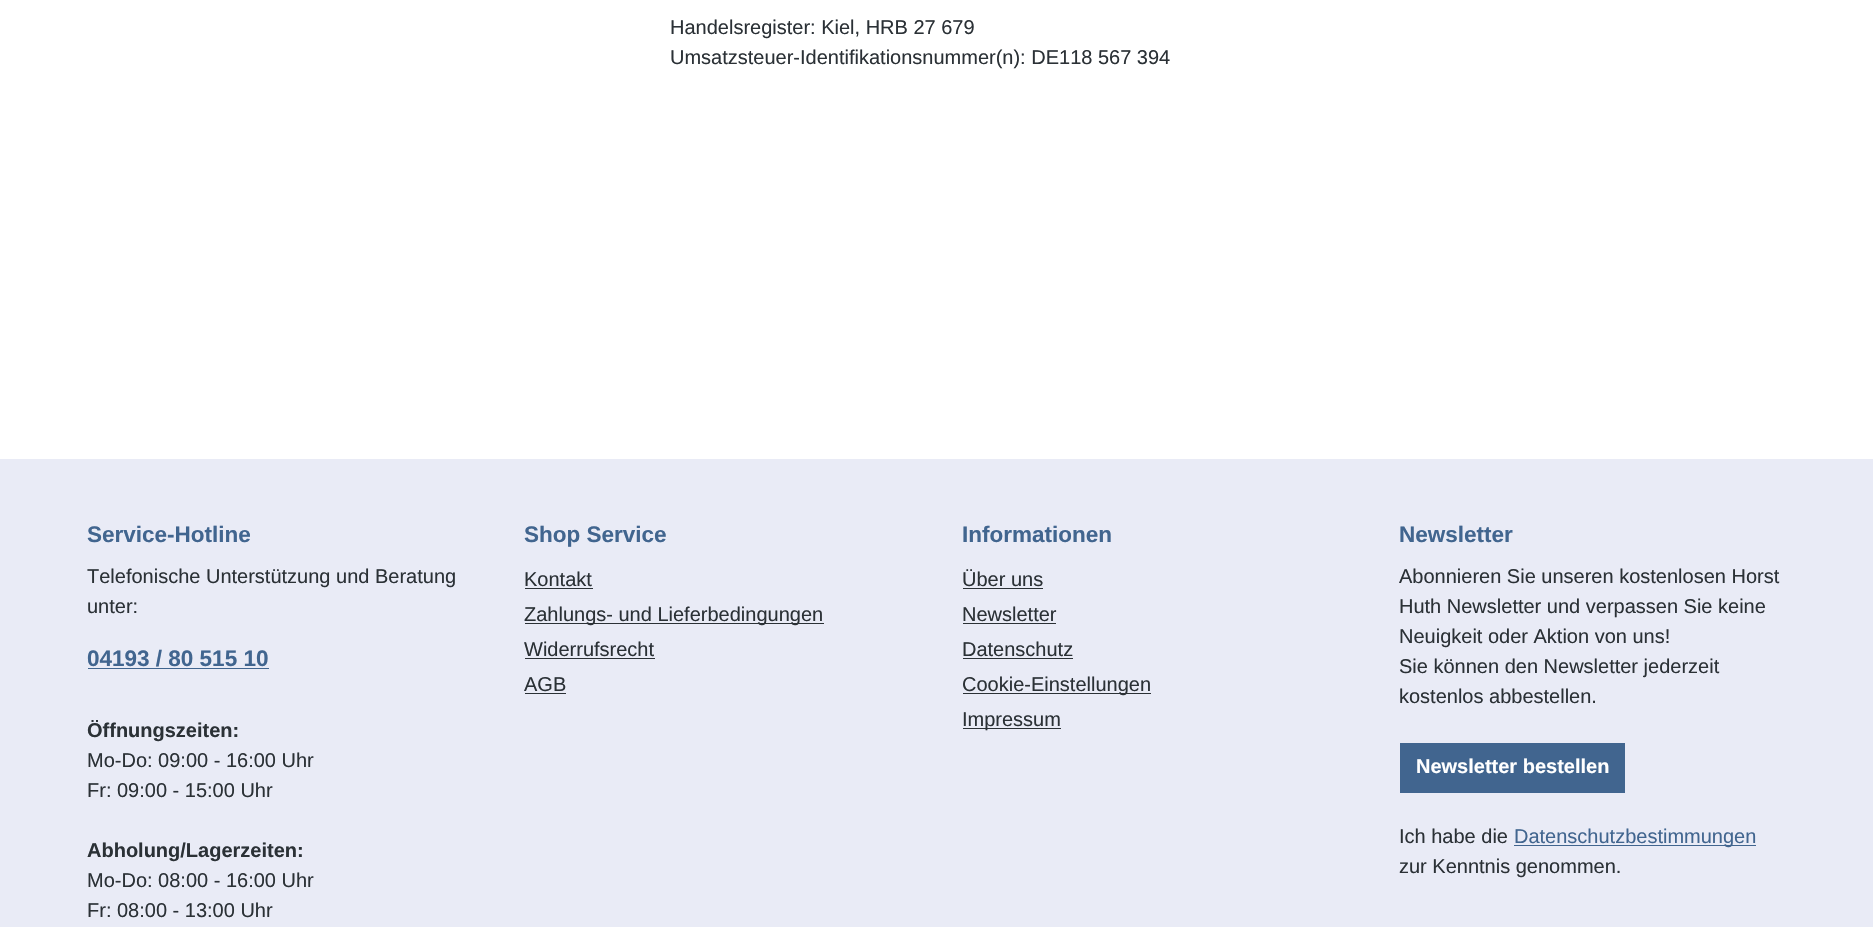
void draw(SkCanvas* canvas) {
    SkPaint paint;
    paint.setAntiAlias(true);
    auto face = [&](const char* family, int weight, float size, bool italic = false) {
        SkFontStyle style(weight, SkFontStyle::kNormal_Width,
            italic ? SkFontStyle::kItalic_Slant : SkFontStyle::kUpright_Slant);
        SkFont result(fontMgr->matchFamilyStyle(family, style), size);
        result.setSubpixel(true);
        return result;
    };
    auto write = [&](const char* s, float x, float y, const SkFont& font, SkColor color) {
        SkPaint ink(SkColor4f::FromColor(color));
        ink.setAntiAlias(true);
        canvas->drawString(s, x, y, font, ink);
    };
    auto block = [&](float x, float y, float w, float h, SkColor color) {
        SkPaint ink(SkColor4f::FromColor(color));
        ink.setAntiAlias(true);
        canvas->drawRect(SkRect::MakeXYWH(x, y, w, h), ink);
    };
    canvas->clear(SK_ColorWHITE);
    auto kFont1 = face("Liberation Sans", 400, 20);
    write("Handelsregister: Kiel, HRB 27 679", 670, 34, kFont1, SkColorSetRGB(43, 49, 54));
    write("Umsatzsteuer-Identifikationsnummer(n): DE118 567 394", 670, 64, kFont1, SkColorSetRGB(43, 49, 54));
    block(0, 459, 1873, 468, SkColorSetRGB(233, 235, 246));
    auto kFont2 = face("Liberation Sans", 700, 22.5f);
    write("Service-Hotline", 87, 542, kFont2, SkColorSetRGB(65, 101, 143));
    write("Telefonische Unterstützung und Beratung", 87, 583, kFont1, SkColorSetRGB(43, 49, 54));
    write("unter:", 87, 613, kFont1, SkColorSetRGB(43, 49, 54));
    write("04193 / 80 515 10", 87, 666, kFont2, SkColorSetRGB(65, 101, 143));
    block(88, 668, 181, 1, SkColorSetRGB(65, 101, 143));
    auto kFont3 = face("Liberation Sans", 700, 20);
    write("Öffnungszeiten:", 87, 737, kFont3, SkColorSetRGB(43, 49, 54));
    write("Mo-Do: 09:00 - 16:00 Uhr", 87, 767, kFont1, SkColorSetRGB(43, 49, 54));
    write("Fr: 09:00 - 15:00 Uhr", 87, 797, kFont1, SkColorSetRGB(43, 49, 54));
    write("Abholung/Lagerzeiten:", 87, 857, kFont3, SkColorSetRGB(43, 49, 54));
    write("Mo-Do: 08:00 - 16:00 Uhr", 87, 887, kFont1, SkColorSetRGB(43, 49, 54));
    write("Fr: 08:00 - 13:00 Uhr", 87, 917, kFont1, SkColorSetRGB(43, 49, 54));
    write("Shop Service", 524, 542, kFont2, SkColorSetRGB(65, 101, 143));
    write("Kontakt", 524, 586, kFont1, SkColorSetRGB(43, 49, 54));
    block(525, 588, 68, 1, SkColorSetRGB(43, 49, 54));
    block(525, 623, 299, 1, SkColorSetRGB(43, 49, 54));
    write("Zahlungs- und Lieferbedingungen", 524, 621, kFont1, SkColorSetRGB(43, 49, 54));
    write("Widerrufsrecht", 524, 656, kFont1, SkColorSetRGB(43, 49, 54));
    block(525, 658, 130, 1, SkColorSetRGB(43, 49, 54));
    write("AGB", 524, 691, kFont1, SkColorSetRGB(43, 49, 54));
    block(525, 693, 41, 1, SkColorSetRGB(43, 49, 54));
    write("Informationen", 962, 542, kFont2, SkColorSetRGB(65, 101, 143));
    write("Über uns", 962, 586, kFont1, SkColorSetRGB(43, 49, 54));
    block(963, 588, 80, 1, SkColorSetRGB(43, 49, 54));
    write("Newsletter", 962, 621, kFont1, SkColorSetRGB(43, 49, 54));
    block(963, 623, 93, 1, SkColorSetRGB(43, 49, 54));
    write("Datenschutz", 962, 656, kFont1, SkColorSetRGB(43, 49, 54));
    block(963, 658, 110, 1, SkColorSetRGB(43, 49, 54));
    block(963, 693, 188, 1, SkColorSetRGB(43, 49, 54));
    write("Cookie-Einstellungen", 962, 691, kFont1, SkColorSetRGB(43, 49, 54));
    block(963, 728, 98, 1, SkColorSetRGB(43, 49, 54));
    write("Impressum", 962, 726, kFont1, SkColorSetRGB(43, 49, 54));
    write("Newsletter", 1399, 542, kFont2, SkColorSetRGB(65, 101, 143));
    write("Abonnieren Sie unseren kostenlosen Horst", 1399, 583, kFont1, SkColorSetRGB(43, 49, 54));
    write("Huth Newsletter und verpassen Sie keine", 1399, 613, kFont1, SkColorSetRGB(43, 49, 54));
    write("Neuigkeit oder Aktion von uns!", 1399, 643, kFont1, SkColorSetRGB(43, 49, 54));
    write("Sie können den Newsletter jederzeit", 1399, 673, kFont1, SkColorSetRGB(43, 49, 54));
    write("kostenlos abbestellen.", 1399, 703, kFont1, SkColorSetRGB(43, 49, 54));
    block(1400, 743, 225, 50, SkColorSetRGB(65, 101, 143));
    write("Newsletter bestellen", 1416, 773, kFont3, SK_ColorWHITE);
    write("Ich habe die", 1399, 843, kFont1, SkColorSetRGB(43, 49, 54));
    block(1514, 845, 242, 1, SkColorSetRGB(65, 101, 143));
    write("Datenschutzbestimmungen", 1514, 843, kFont1, SkColorSetRGB(65, 101, 143));
    write("zur Kenntnis genommen.", 1399, 873, kFont1, SkColorSetRGB(43, 49, 54));
}
